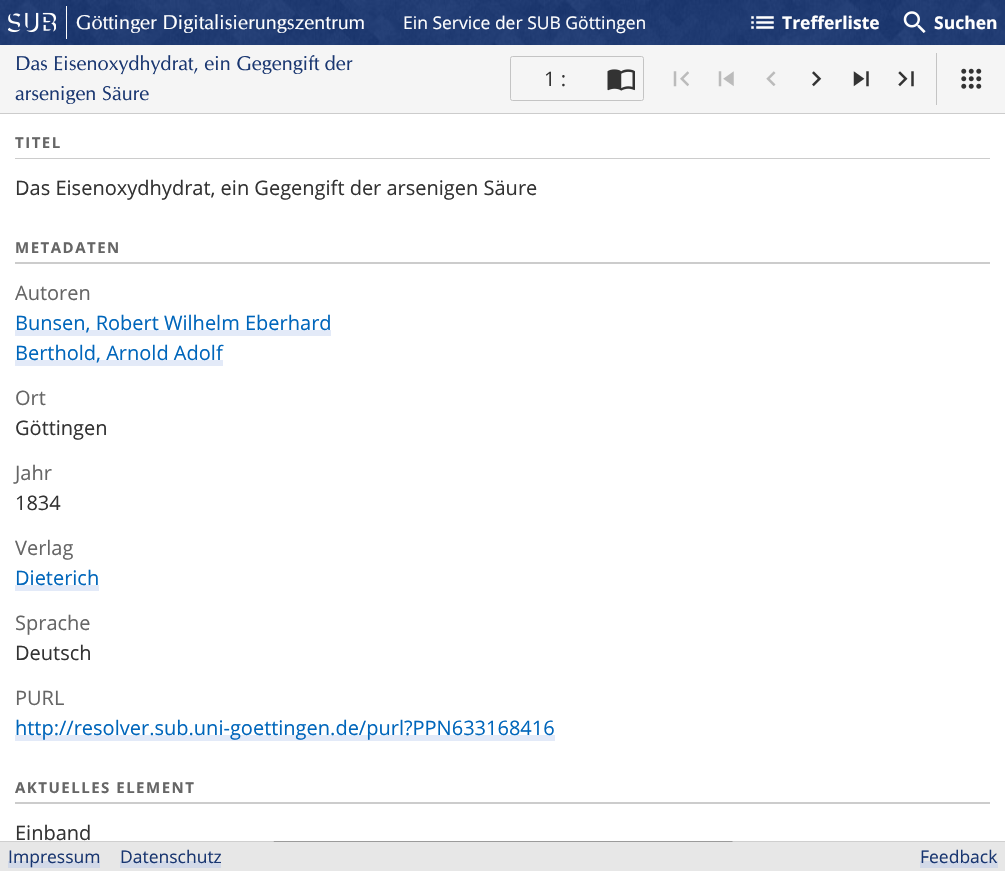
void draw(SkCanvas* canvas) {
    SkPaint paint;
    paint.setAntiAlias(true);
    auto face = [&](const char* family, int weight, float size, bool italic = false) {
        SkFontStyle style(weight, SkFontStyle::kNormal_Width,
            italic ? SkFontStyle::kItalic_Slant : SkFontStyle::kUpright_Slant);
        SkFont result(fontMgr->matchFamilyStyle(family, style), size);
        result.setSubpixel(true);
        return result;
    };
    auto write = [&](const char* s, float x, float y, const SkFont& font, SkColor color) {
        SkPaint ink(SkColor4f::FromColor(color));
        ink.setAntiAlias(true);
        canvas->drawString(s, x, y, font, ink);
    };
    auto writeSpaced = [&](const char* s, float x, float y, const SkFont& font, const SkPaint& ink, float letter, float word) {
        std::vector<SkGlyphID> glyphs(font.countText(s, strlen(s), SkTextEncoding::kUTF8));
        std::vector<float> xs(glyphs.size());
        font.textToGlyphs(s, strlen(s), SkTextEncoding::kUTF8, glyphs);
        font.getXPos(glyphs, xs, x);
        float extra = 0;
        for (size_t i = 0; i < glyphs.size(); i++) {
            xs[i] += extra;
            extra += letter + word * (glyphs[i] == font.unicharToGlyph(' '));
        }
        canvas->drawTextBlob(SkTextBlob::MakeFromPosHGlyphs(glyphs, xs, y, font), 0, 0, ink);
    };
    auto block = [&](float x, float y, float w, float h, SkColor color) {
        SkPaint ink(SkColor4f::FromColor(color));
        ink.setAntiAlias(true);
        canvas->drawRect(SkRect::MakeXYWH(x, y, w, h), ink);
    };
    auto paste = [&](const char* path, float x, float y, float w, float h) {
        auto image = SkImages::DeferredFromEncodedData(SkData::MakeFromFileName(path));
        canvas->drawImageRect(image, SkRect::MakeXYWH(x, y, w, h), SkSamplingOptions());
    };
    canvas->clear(SkColorSetRGB(231, 231, 231));
    paste("pic1.png", 0, 0, 1005, 45);
    paste("pic2.png", 8, 12, 48, 21);
    auto kFont1 = face("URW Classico", 400, 20);
    write("Göttinger Digitalisierungszentrum", 76, 29, kFont1, SK_ColorWHITE);
    block(66, 6, 1, 33, SK_ColorWHITE);
    auto kFont2 = face("Open Sans", 400, 17.5f);
    write("Ein Service der SUB Göttingen", 403, 29, kFont2, SK_ColorWHITE);
    paste("pic3.png", 751, 16, 23, 13);
    auto kFont3 = face("Open Sans", 700, 17.5f);
    write("Trefferliste", 782, 29, kFont3, SK_ColorWHITE);
    paste("pic4.png", 903, 11, 23, 22);
    write("Suchen", 934, 29, kFont3, SK_ColorWHITE);
    block(0, 113, 1005, 728, SK_ColorWHITE);
    block(0, 113, 1005, 1, SkColorSetARGB(51, 0, 0, 0));
    block(0, 45, 1005, 68, SkColorSetRGB(245, 245, 245));
    write("Das Eisenoxydhydrat, ein Gegengift der", 15, 70, kFont1, SkColorSetRGB(26, 55, 113));
    write("arsenigen Säure", 15, 100, kFont1, SkColorSetRGB(26, 55, 113));
    paint.setStyle(SkPaint::kStroke_Style);
    paint.setStrokeWidth(1);
    paint.setColor(SkColorSetRGB(196, 196, 196));
    canvas->drawRoundRect(SkRect::MakeXYWH(510.5f, 56.5f, 133, 44), 2, 2, paint);
    auto kFont4 = face("Open Sans", 400, 20);
    write("1 :", 544, 86, kFont4, SkColorSetRGB(51, 51, 51));
    paste("pic5.png", 607, 69, 28, 22);
    paste("pic6.png", 673, 71, 16, 16);
    paste("pic7.png", 718, 71, 16, 16);
    paste("pic8.png", 766, 71, 10, 15);
    paste("pic9.png", 812, 71, 10, 16);
    paste("pic10.png", 853, 71, 16, 16);
    paste("pic11.png", 898, 71, 16, 16);
    block(936, 53, 1, 52, SkColorSetRGB(196, 196, 196));
    paste("pic12.png", 961, 68, 21, 21);
    block(15, 158, 975, 1, SkColorSetRGB(204, 204, 204));
    auto kFont5 = face("Open Sans", 700, 15);
    paint.setStyle(SkPaint::kFill_Style);
    paint.setColor(SkColorSetRGB(102, 102, 102));
    writeSpaced("TITEL", 15, 148, kFont5, paint, 1.5f, 0);
    write("Das Eisenoxydhydrat, ein Gegengift der arsenigen Säure", 15, 195, kFont4, SkColorSetRGB(51, 51, 51));
    block(15, 262, 975, 2, SkColorSetRGB(204, 204, 204));
    writeSpaced("METADATEN", 15, 253, kFont5, paint, 1.5f, 0);
    write("Autoren", 15, 300, kFont4, SkColorSetRGB(102, 102, 102));
    block(15, 330, 316, 6, SkColorSetRGB(227, 234, 248));
    write("Bunsen, Robert Wilhelm Eberhard", 15, 330, kFont4, SkColorSetRGB(0, 102, 187));
    block(15, 360, 208, 6, SkColorSetRGB(227, 234, 248));
    write("Berthold, Arnold Adolf", 15, 360, kFont4, SkColorSetRGB(0, 102, 187));
    write("Ort", 15, 405, kFont4, SkColorSetRGB(102, 102, 102));
    write("Göttingen", 15, 435, kFont4, SkColorSetRGB(51, 51, 51));
    write("Jahr", 15, 480, kFont4, SkColorSetRGB(102, 102, 102));
    write("1834", 15, 510, kFont4, SkColorSetRGB(51, 51, 51));
    write("Verlag", 15, 555, kFont4, SkColorSetRGB(102, 102, 102));
    block(15, 585, 84, 6, SkColorSetRGB(227, 234, 248));
    write("Dieterich", 15, 585, kFont4, SkColorSetRGB(0, 102, 187));
    write("Sprache", 15, 630, kFont4, SkColorSetRGB(102, 102, 102));
    write("Deutsch", 15, 660, kFont4, SkColorSetRGB(51, 51, 51));
    write("PURL", 15, 705, kFont4, SkColorSetRGB(102, 102, 102));
    block(15, 735, 540, 6, SkColorSetRGB(227, 234, 248));
    write("http://resolver.sub.uni-goettingen.de/purl?PPN633168416", 15, 735, kFont4, SkColorSetRGB(0, 102, 187));
    block(15, 802, 975, 2, SkColorSetRGB(204, 204, 204));
    writeSpaced("AKTUELLES ELEMENT", 15, 793, kFont5, paint, 1.5f, 0);
    write("Einband", 15, 840, kFont4, SkColorSetRGB(51, 51, 51));
    paste("pic13.png", 273, 841, 460, 1);
    block(0, 841, 1005, 1, SkColorSetARGB(26, 0, 0, 0));
    block(8, 861, 92, 7, SkColorSetRGB(210, 217, 232));
    write("Impressum", 8, 863, kFont2, SkColorSetRGB(26, 55, 113));
    block(120, 861, 101, 7, SkColorSetRGB(210, 217, 232));
    write("Datenschutz", 120, 863, kFont2, SkColorSetRGB(26, 55, 113));
    block(920, 861, 78, 7, SkColorSetRGB(210, 217, 232));
    write("Feedback", 920, 863, kFont2, SkColorSetRGB(26, 55, 113));
}
